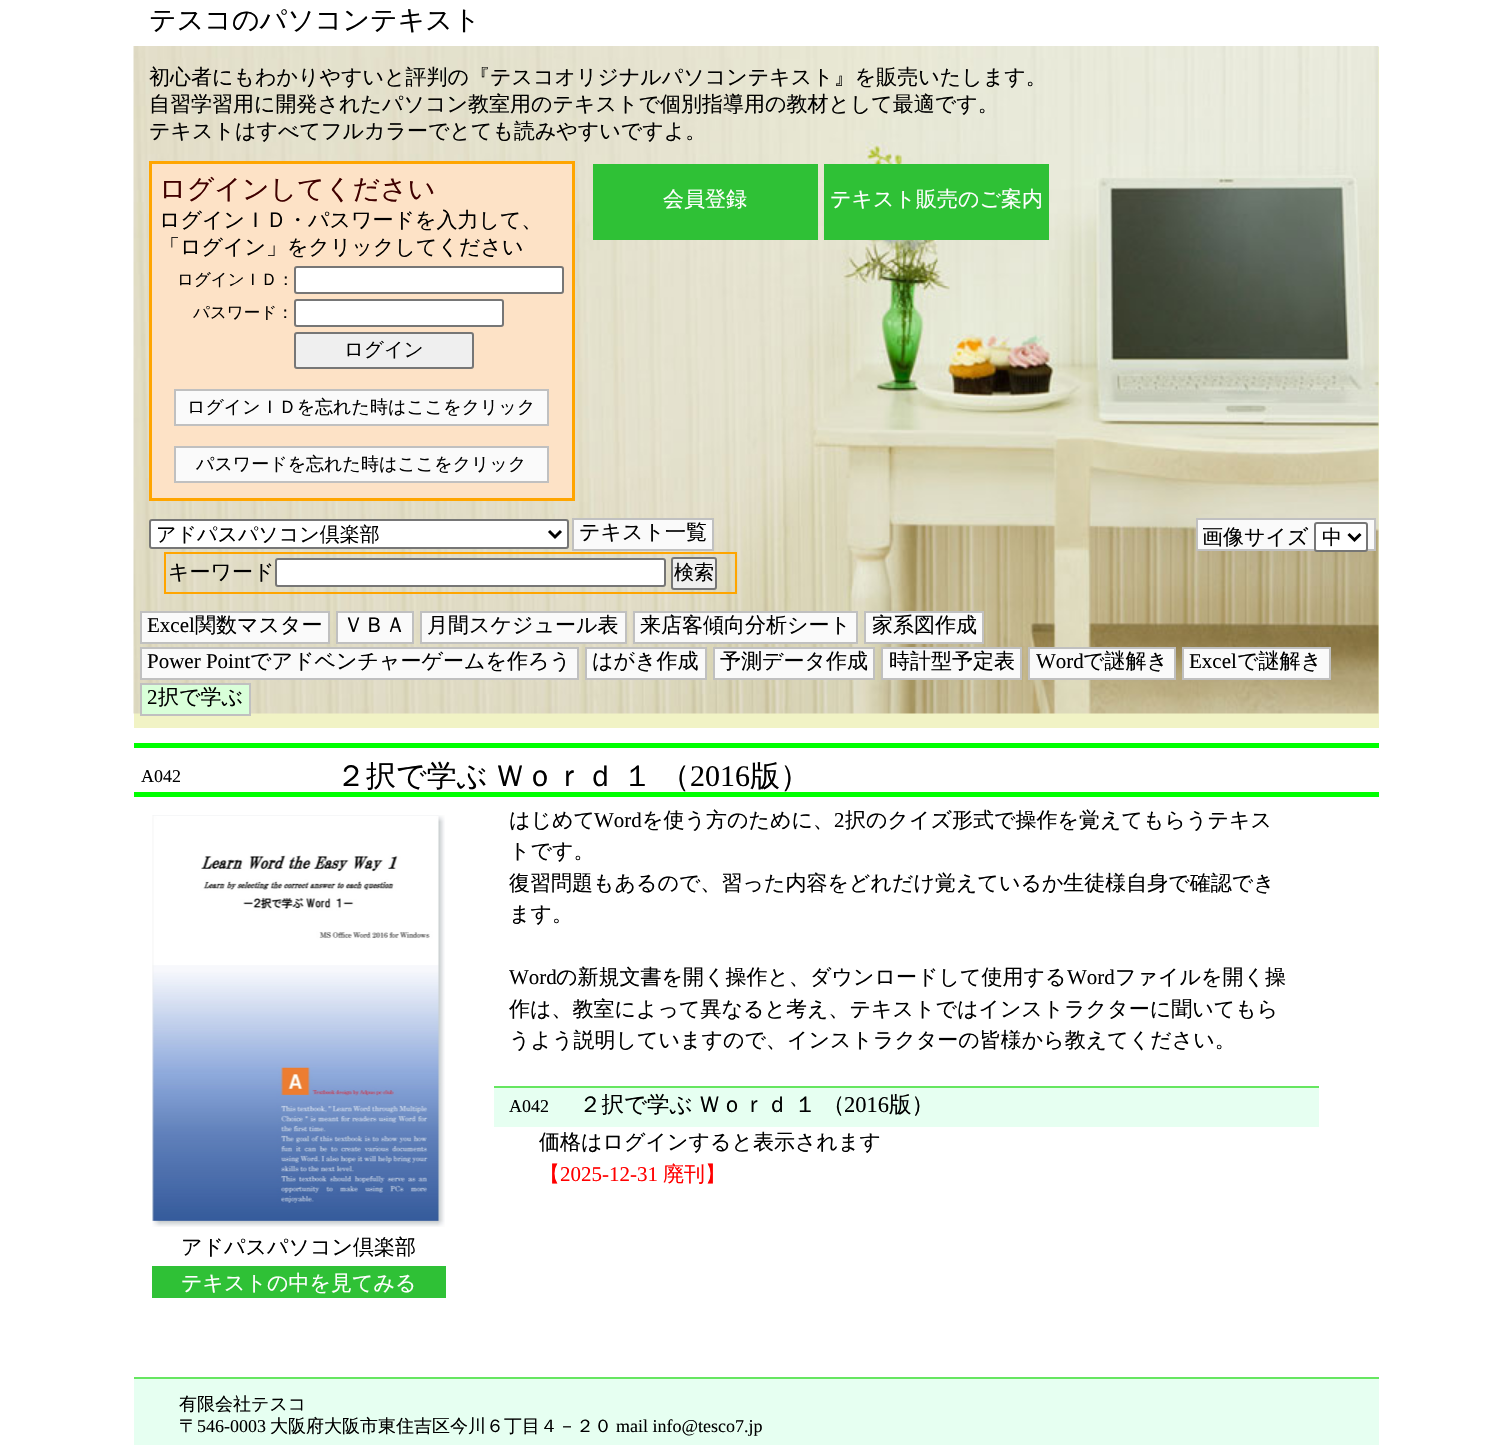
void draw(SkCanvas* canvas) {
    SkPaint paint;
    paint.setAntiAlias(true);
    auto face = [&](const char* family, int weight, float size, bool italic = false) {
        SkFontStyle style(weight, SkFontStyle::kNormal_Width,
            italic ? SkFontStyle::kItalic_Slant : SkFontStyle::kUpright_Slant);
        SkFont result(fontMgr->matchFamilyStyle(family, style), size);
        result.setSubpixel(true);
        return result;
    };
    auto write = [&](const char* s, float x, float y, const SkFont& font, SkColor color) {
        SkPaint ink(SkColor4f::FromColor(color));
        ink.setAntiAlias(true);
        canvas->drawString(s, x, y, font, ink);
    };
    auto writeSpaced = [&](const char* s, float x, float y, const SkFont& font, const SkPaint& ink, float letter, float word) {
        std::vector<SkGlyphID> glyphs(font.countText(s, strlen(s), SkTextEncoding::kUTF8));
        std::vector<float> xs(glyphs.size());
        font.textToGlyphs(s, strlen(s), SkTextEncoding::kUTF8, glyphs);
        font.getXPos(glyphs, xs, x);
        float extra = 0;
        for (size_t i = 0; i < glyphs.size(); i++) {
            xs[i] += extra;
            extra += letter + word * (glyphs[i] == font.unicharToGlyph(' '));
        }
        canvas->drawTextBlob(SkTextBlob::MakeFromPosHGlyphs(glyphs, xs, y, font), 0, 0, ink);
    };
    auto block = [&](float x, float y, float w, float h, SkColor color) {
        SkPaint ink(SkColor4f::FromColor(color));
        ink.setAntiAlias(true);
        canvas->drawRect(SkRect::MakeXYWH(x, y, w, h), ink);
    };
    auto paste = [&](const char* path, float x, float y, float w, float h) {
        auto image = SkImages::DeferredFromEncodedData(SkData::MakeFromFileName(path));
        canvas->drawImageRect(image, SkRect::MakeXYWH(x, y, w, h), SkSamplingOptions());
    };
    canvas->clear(SK_ColorWHITE);
    auto kFont1 = face("WenQuanYi Zen Hei", 500, 27);
    write("テスコのパソコンテキスト", 149, 29, kFont1, SK_ColorBLACK);
    block(134, 47, 1245, 681, SkColorSetRGB(241, 243, 197));
    paste("pic1.png", 133, 46, 1246, 668);
    auto kFont2 = face("WenQuanYi Zen Hei", 500, 21);
    write("初心者にもわかりやすいと評判の『テスコオリジナルパソコンテキスト』を販売いたします。", 149, 84, kFont2, SK_ColorBLACK);
    write("自習学習用に開発されたパソコン教室用のテキストで個別指導用の教材として最適です。", 149, 111, kFont2, SK_ColorBLACK);
    write("テキストはすべてフルカラーでとても読みやすいですよ。", 149, 138, kFont2, SK_ColorBLACK);
    paint.setColor(SkColorSetRGB(253, 226, 198));
    canvas->drawRect(SkRect::MakeXYWH(150.5f, 162.5f, 423, 337), paint);
    paint.setStyle(SkPaint::kStroke_Style);
    paint.setStrokeWidth(3);
    paint.setColor(SkColorSetRGB(255, 165, 0));
    canvas->drawRect(SkRect::MakeXYWH(150.5f, 162.5f, 423, 337), paint);
    write("ログインしてください", 159, 198, kFont1, SkColorSetRGB(64, 0, 0));
    write("ログインＩＤ・パスワードを入力して、", 159, 227, kFont2, SK_ColorBLACK);
    write("「ログイン」をクリックしてください", 159, 254, kFont2, SK_ColorBLACK);
    auto kFont3 = face("WenQuanYi Zen Hei", 500, 16.5f);
    write("ログインＩＤ：", 177, 285, kFont3, SK_ColorBLACK);
    paint.setStyle(SkPaint::kFill_Style);
    paint.setColor(SK_ColorWHITE);
    canvas->drawRoundRect(SkRect::MakeXYWH(295, 267, 268, 26), 2, 2, paint);
    paint.setStyle(SkPaint::kStroke_Style);
    paint.setStrokeWidth(2);
    paint.setColor(SkColorSetRGB(118, 118, 118));
    canvas->drawRoundRect(SkRect::MakeXYWH(295, 267, 268, 26), 2, 2, paint);
    write("パスワード：", 193, 318, kFont3, SK_ColorBLACK);
    paint.setStyle(SkPaint::kFill_Style);
    paint.setColor(SK_ColorWHITE);
    canvas->drawRoundRect(SkRect::MakeXYWH(295, 300, 208, 26), 2, 2, paint);
    paint.setStyle(SkPaint::kStroke_Style);
    paint.setColor(SkColorSetRGB(118, 118, 118));
    canvas->drawRoundRect(SkRect::MakeXYWH(295, 300, 208, 26), 2, 2, paint);
    paint.setStyle(SkPaint::kFill_Style);
    paint.setColor(SkColorSetRGB(239, 239, 239));
    canvas->drawRoundRect(SkRect::MakeXYWH(295, 333, 178, 35), 2, 2, paint);
    paint.setStyle(SkPaint::kStroke_Style);
    paint.setColor(SkColorSetRGB(118, 118, 118));
    canvas->drawRoundRect(SkRect::MakeXYWH(295, 333, 178, 35), 2, 2, paint);
    auto kFont4 = face("WenQuanYi Zen Hei", 500, 19.5f);
    write("ログイン", 344, 356, kFont4, SK_ColorBLACK);
    paint.setStyle(SkPaint::kFill_Style);
    paint.setColor(SkColorSetRGB(250, 250, 250));
    canvas->drawRect(SkRect::MakeXYWH(175, 390, 373, 35), paint);
    paint.setStyle(SkPaint::kStroke_Style);
    paint.setColor(SkColorSetRGB(192, 192, 192));
    canvas->drawRect(SkRect::MakeXYWH(175, 390, 373, 35), paint);
    auto kFont5 = face("WenQuanYi Zen Hei", 500, 18);
    write("ログインＩＤを忘れた時はここをクリック", 187, 413, kFont5, SK_ColorBLACK);
    paint.setStyle(SkPaint::kFill_Style);
    paint.setColor(SkColorSetRGB(250, 250, 250));
    canvas->drawRect(SkRect::MakeXYWH(175, 447, 373, 35), paint);
    paint.setStyle(SkPaint::kStroke_Style);
    paint.setColor(SkColorSetRGB(192, 192, 192));
    canvas->drawRect(SkRect::MakeXYWH(175, 447, 373, 35), paint);
    write("パスワードを忘れた時はここをクリック", 196, 470, kFont5, SK_ColorBLACK);
    block(593, 164, 225, 76, SkColorSetRGB(47, 193, 54));
    write("会員登録", 663, 206, kFont2, SK_ColorWHITE);
    block(824, 164, 225, 76, SkColorSetRGB(47, 193, 54));
    write("テキスト販売のご案内", 830, 206, kFont2, SK_ColorWHITE);
    paint.setStyle(SkPaint::kFill_Style);
    paint.setColor(SK_ColorWHITE);
    canvas->drawRoundRect(SkRect::MakeXYWH(150, 520, 418, 28), 2, 2, paint);
    paint.setStyle(SkPaint::kStroke_Style);
    paint.setColor(SkColorSetRGB(118, 118, 118));
    canvas->drawRoundRect(SkRect::MakeXYWH(150, 520, 418, 28), 2, 2, paint);
    paint.setStrokeWidth(3);
    paint.setColor(SK_ColorBLACK);
    canvas->drawPath(SkPathBuilder().moveTo(549, 531).lineTo(555, 537).lineTo(561, 531).detach(), paint);
    auto kFont6 = face("WenQuanYi Zen Hei", 500, 20);
    write("アドパスパソコン倶楽部", 156, 541, kFont6, SK_ColorBLACK);
    paint.setStyle(SkPaint::kFill_Style);
    paint.setColor(SkColorSetRGB(250, 250, 250));
    canvas->drawRect(SkRect::MakeXYWH(573, 519, 140, 31), paint);
    paint.setStyle(SkPaint::kStroke_Style);
    paint.setStrokeWidth(2);
    paint.setColor(SkColorSetRGB(192, 192, 192));
    canvas->drawRect(SkRect::MakeXYWH(573, 519, 140, 31), paint);
    write("テキスト一覧", 579, 539, kFont2, SK_ColorBLACK);
    paint.setStyle(SkPaint::kFill_Style);
    paint.setColor(SkColorSetRGB(250, 250, 250));
    canvas->drawRect(SkRect::MakeXYWH(1197, 519, 178, 31), paint);
    paint.setStyle(SkPaint::kStroke_Style);
    paint.setColor(SkColorSetRGB(192, 192, 192));
    canvas->drawRect(SkRect::MakeXYWH(1197, 519, 178, 31), paint);
    write("画像サイズ", 1202, 544, kFont2, SK_ColorBLACK);
    paint.setStyle(SkPaint::kFill_Style);
    paint.setColor(SK_ColorWHITE);
    canvas->drawRoundRect(SkRect::MakeXYWH(1315, 523, 52, 28), 2, 2, paint);
    paint.setStyle(SkPaint::kStroke_Style);
    paint.setColor(SkColorSetRGB(118, 118, 118));
    canvas->drawRoundRect(SkRect::MakeXYWH(1315, 523, 52, 28), 2, 2, paint);
    paint.setStrokeWidth(3);
    paint.setColor(SK_ColorBLACK);
    canvas->drawPath(SkPathBuilder().moveTo(1348.5f, 534).lineTo(1354.5f, 540).lineTo(1360.5f, 534).detach(), paint);
    write("中", 1322, 544, kFont6, SK_ColorBLACK);
    paint.setStrokeWidth(2);
    paint.setColor(SkColorSetRGB(255, 165, 0));
    canvas->drawRect(SkRect::MakeXYWH(165, 553, 571, 40), paint);
    write("キーワード", 168, 579, kFont2, SK_ColorBLACK);
    paint.setStyle(SkPaint::kFill_Style);
    paint.setColor(SK_ColorWHITE);
    canvas->drawRoundRect(SkRect::MakeXYWH(276, 559, 389, 27), 2, 2, paint);
    paint.setStyle(SkPaint::kStroke_Style);
    paint.setColor(SkColorSetRGB(118, 118, 118));
    canvas->drawRoundRect(SkRect::MakeXYWH(276, 559, 389, 27), 2, 2, paint);
    paint.setStyle(SkPaint::kFill_Style);
    paint.setColor(SkColorSetRGB(239, 239, 239));
    canvas->drawRoundRect(SkRect::MakeXYWH(672, 558, 44, 31), 2, 2, paint);
    paint.setStyle(SkPaint::kStroke_Style);
    paint.setColor(SkColorSetRGB(118, 118, 118));
    canvas->drawRoundRect(SkRect::MakeXYWH(672, 558, 44, 31), 2, 2, paint);
    write("検索", 674, 579, kFont6, SK_ColorBLACK);
    paint.setStyle(SkPaint::kFill_Style);
    paint.setColor(SkColorSetRGB(250, 250, 250));
    canvas->drawRect(SkRect::MakeXYWH(141, 612, 188, 31), paint);
    paint.setStyle(SkPaint::kStroke_Style);
    paint.setColor(SkColorSetRGB(192, 192, 192));
    canvas->drawRect(SkRect::MakeXYWH(141, 612, 188, 31), paint);
    auto kFont7 = face("Liberation Serif", 400, 21);
    write("Excel", 147, 632, kFont7, SK_ColorBLACK);
    write("関数マスター", 195, 632, kFont2, SK_ColorBLACK);
    paint.setStyle(SkPaint::kFill_Style);
    paint.setColor(SkColorSetRGB(250, 250, 250));
    canvas->drawRect(SkRect::MakeXYWH(337, 612, 76, 31), paint);
    paint.setStyle(SkPaint::kStroke_Style);
    paint.setColor(SkColorSetRGB(192, 192, 192));
    canvas->drawRect(SkRect::MakeXYWH(337, 612, 76, 31), paint);
    write("ＶＢＡ", 343, 632, kFont2, SK_ColorBLACK);
    paint.setStyle(SkPaint::kFill_Style);
    paint.setColor(SkColorSetRGB(250, 250, 250));
    canvas->drawRect(SkRect::MakeXYWH(421, 612, 205, 31), paint);
    paint.setStyle(SkPaint::kStroke_Style);
    paint.setColor(SkColorSetRGB(192, 192, 192));
    canvas->drawRect(SkRect::MakeXYWH(421, 612, 205, 31), paint);
    write("月間スケジュール表", 427, 632, kFont2, SK_ColorBLACK);
    paint.setStyle(SkPaint::kFill_Style);
    paint.setColor(SkColorSetRGB(250, 250, 250));
    canvas->drawRect(SkRect::MakeXYWH(634, 612, 223, 31), paint);
    paint.setStyle(SkPaint::kStroke_Style);
    paint.setColor(SkColorSetRGB(192, 192, 192));
    canvas->drawRect(SkRect::MakeXYWH(634, 612, 223, 31), paint);
    write("来店客傾向分析シート", 640, 632, kFont2, SK_ColorBLACK);
    paint.setStyle(SkPaint::kFill_Style);
    paint.setColor(SkColorSetRGB(250, 250, 250));
    canvas->drawRect(SkRect::MakeXYWH(865, 612, 118, 31), paint);
    paint.setStyle(SkPaint::kStroke_Style);
    paint.setColor(SkColorSetRGB(192, 192, 192));
    canvas->drawRect(SkRect::MakeXYWH(865, 612, 118, 31), paint);
    write("家系図作成", 872, 632, kFont2, SK_ColorBLACK);
    paint.setStyle(SkPaint::kFill_Style);
    paint.setColor(SkColorSetRGB(250, 250, 250));
    canvas->drawRect(SkRect::MakeXYWH(141, 648, 437, 31), paint);
    paint.setStyle(SkPaint::kStroke_Style);
    paint.setColor(SkColorSetRGB(192, 192, 192));
    canvas->drawRect(SkRect::MakeXYWH(141, 648, 437, 31), paint);
    write("Power Point", 147, 668, kFont7, SK_ColorBLACK);
    write("でアドベンチャーゲームを作ろう", 250, 668, kFont2, SK_ColorBLACK);
    paint.setStyle(SkPaint::kFill_Style);
    paint.setColor(SkColorSetRGB(250, 250, 250));
    canvas->drawRect(SkRect::MakeXYWH(586, 648, 120, 31), paint);
    paint.setStyle(SkPaint::kStroke_Style);
    paint.setColor(SkColorSetRGB(192, 192, 192));
    canvas->drawRect(SkRect::MakeXYWH(586, 648, 120, 31), paint);
    write("はがき作成", 592, 668, kFont2, SK_ColorBLACK);
    paint.setStyle(SkPaint::kFill_Style);
    paint.setColor(SkColorSetRGB(250, 250, 250));
    canvas->drawRect(SkRect::MakeXYWH(714, 648, 160, 31), paint);
    paint.setStyle(SkPaint::kStroke_Style);
    paint.setColor(SkColorSetRGB(192, 192, 192));
    canvas->drawRect(SkRect::MakeXYWH(714, 648, 160, 31), paint);
    write("予測データ作成", 720, 668, kFont2, SK_ColorBLACK);
    paint.setStyle(SkPaint::kFill_Style);
    paint.setColor(SkColorSetRGB(250, 250, 250));
    canvas->drawRect(SkRect::MakeXYWH(882, 648, 139, 31), paint);
    paint.setStyle(SkPaint::kStroke_Style);
    paint.setColor(SkColorSetRGB(192, 192, 192));
    canvas->drawRect(SkRect::MakeXYWH(882, 648, 139, 31), paint);
    write("時計型予定表", 889, 668, kFont2, SK_ColorBLACK);
    paint.setStyle(SkPaint::kFill_Style);
    paint.setColor(SkColorSetRGB(250, 250, 250));
    canvas->drawRect(SkRect::MakeXYWH(1029, 648, 146, 31), paint);
    paint.setStyle(SkPaint::kStroke_Style);
    paint.setColor(SkColorSetRGB(192, 192, 192));
    canvas->drawRect(SkRect::MakeXYWH(1029, 648, 146, 31), paint);
    write("Word", 1036, 668, kFont7, SK_ColorBLACK);
    write("で謎解き", 1083, 668, kFont2, SK_ColorBLACK);
    paint.setStyle(SkPaint::kFill_Style);
    paint.setColor(SkColorSetRGB(250, 250, 250));
    canvas->drawRect(SkRect::MakeXYWH(1183, 648, 147, 31), paint);
    paint.setStyle(SkPaint::kStroke_Style);
    paint.setColor(SkColorSetRGB(192, 192, 192));
    canvas->drawRect(SkRect::MakeXYWH(1183, 648, 147, 31), paint);
    write("Excel", 1189, 668, kFont7, SK_ColorBLACK);
    write("で謎解き", 1237, 668, kFont2, SK_ColorBLACK);
    paint.setStyle(SkPaint::kFill_Style);
    paint.setColor(SkColorSetRGB(217, 255, 217));
    canvas->drawRect(SkRect::MakeXYWH(141, 684, 109, 31), paint);
    paint.setStyle(SkPaint::kStroke_Style);
    paint.setColor(SkColorSetRGB(192, 192, 192));
    canvas->drawRect(SkRect::MakeXYWH(141, 684, 109, 31), paint);
    write("2", 147, 704, kFont7, SK_ColorBLACK);
    write("択で学ぶ", 158, 704, kFont2, SK_ColorBLACK);
    block(134, 743, 1245, 5, SkColorSetRGB(0, 255, 0));
    block(134, 792, 1245, 5, SkColorSetRGB(0, 255, 0));
    auto kFont8 = face("Liberation Serif", 400, 18);
    write("A042", 141, 782, kFont8, SK_ColorBLACK);
    auto kFont9 = face("WenQuanYi Zen Hei", 500, 30);
    paint.setStyle(SkPaint::kFill_Style);
    paint.setColor(SK_ColorBLACK);
    writeSpaced("２択で学ぶ Ｗｏｒｄ １ （", 336, 786, kFont9, paint, 0, -1.5f);
    auto kFont10 = face("Liberation Serif", 400, 30);
    write("2016", 690, 786, kFont10, SK_ColorBLACK);
    write("版）", 750, 786, kFont9, SK_ColorBLACK);
    write("はじめて", 509, 827, kFont2, SK_ColorBLACK);
    write("Word", 594, 827, kFont7, SK_ColorBLACK);
    write("を使う方のために、", 642, 827, kFont2, SK_ColorBLACK);
    write("2", 834, 827, kFont7, SK_ColorBLACK);
    write("択のクイズ形式で操作を覚えてもらうテキス", 845, 827, kFont2, SK_ColorBLACK);
    write("トです。", 509, 858, kFont2, SK_ColorBLACK);
    write("復習問題もあるので、習った内容をどれだけ覚えているか生徒様自身で確認でき", 509, 890, kFont2, SK_ColorBLACK);
    write("ます。", 509, 921, kFont2, SK_ColorBLACK);
    write("Word", 509, 984, kFont7, SK_ColorBLACK);
    write("の新規文書を開く操作と、ダウンロードして使用する", 556, 984, kFont2, SK_ColorBLACK);
    write("Word", 1067, 984, kFont7, SK_ColorBLACK);
    write("ファイルを開く操", 1115, 984, kFont2, SK_ColorBLACK);
    write("作は、教室によって異なると考え、テキストではインストラクターに聞いてもら", 509, 1016, kFont2, SK_ColorBLACK);
    write("うよう説明していますので、インストラクターの皆様から教えてください。", 509, 1047, kFont2, SK_ColorBLACK);
    block(494, 1088, 825, 39, SkColorSetRGB(230, 255, 241));
    block(494, 1086, 825, 2, SkColorSetRGB(102, 230, 96));
    write("A042", 509, 1112, kFont8, SK_ColorBLACK);
    auto kFont11 = face("WenQuanYi Zen Hei", 500, 22.5f);
    writeSpaced("２択で学ぶ Ｗｏｒｄ １ （", 579, 1112, kFont11, paint, 0, -1);
    auto kFont12 = face("Liberation Serif", 400, 22.5f);
    write("2016", 844, 1112, kFont12, SK_ColorBLACK);
    write("版）", 889, 1112, kFont11, SK_ColorBLACK);
    write("価格はログインすると表示されます", 539, 1149, kFont2, SK_ColorBLACK);
    write("【", 539, 1181, kFont2, SkColorSetRGB(255, 0, 0));
    write("2025-12-31", 560, 1181, kFont7, SkColorSetRGB(255, 0, 0));
    write("廃刊】", 663, 1181, kFont2, SkColorSetRGB(255, 0, 0));
    paste("pic2.png", 152, 815, 293, 412);
    write("アドパスパソコン倶楽部", 181, 1254, kFont2, SK_ColorBLACK);
    block(152, 1266, 294, 32, SkColorSetRGB(47, 193, 54));
    write("テキストの中を見てみる", 181, 1290, kFont2, SK_ColorWHITE);
    block(134, 1379, 1245, 66, SkColorSetRGB(230, 255, 241));
    block(134, 1377, 1245, 2, SkColorSetRGB(102, 230, 96));
    write("有限会社テスコ", 179, 1410, kFont5, SK_ColorBLACK);
    write("〒", 179, 1432, kFont5, SK_ColorBLACK);
    write("546-0003", 197, 1432, kFont8, SK_ColorBLACK);
    write("大阪府大阪市東住吉区今川６丁目４－２０", 270, 1432, kFont5, SK_ColorBLACK);
    write("mail info@tesco7.jp", 616, 1432, kFont8, SK_ColorBLACK);
}
